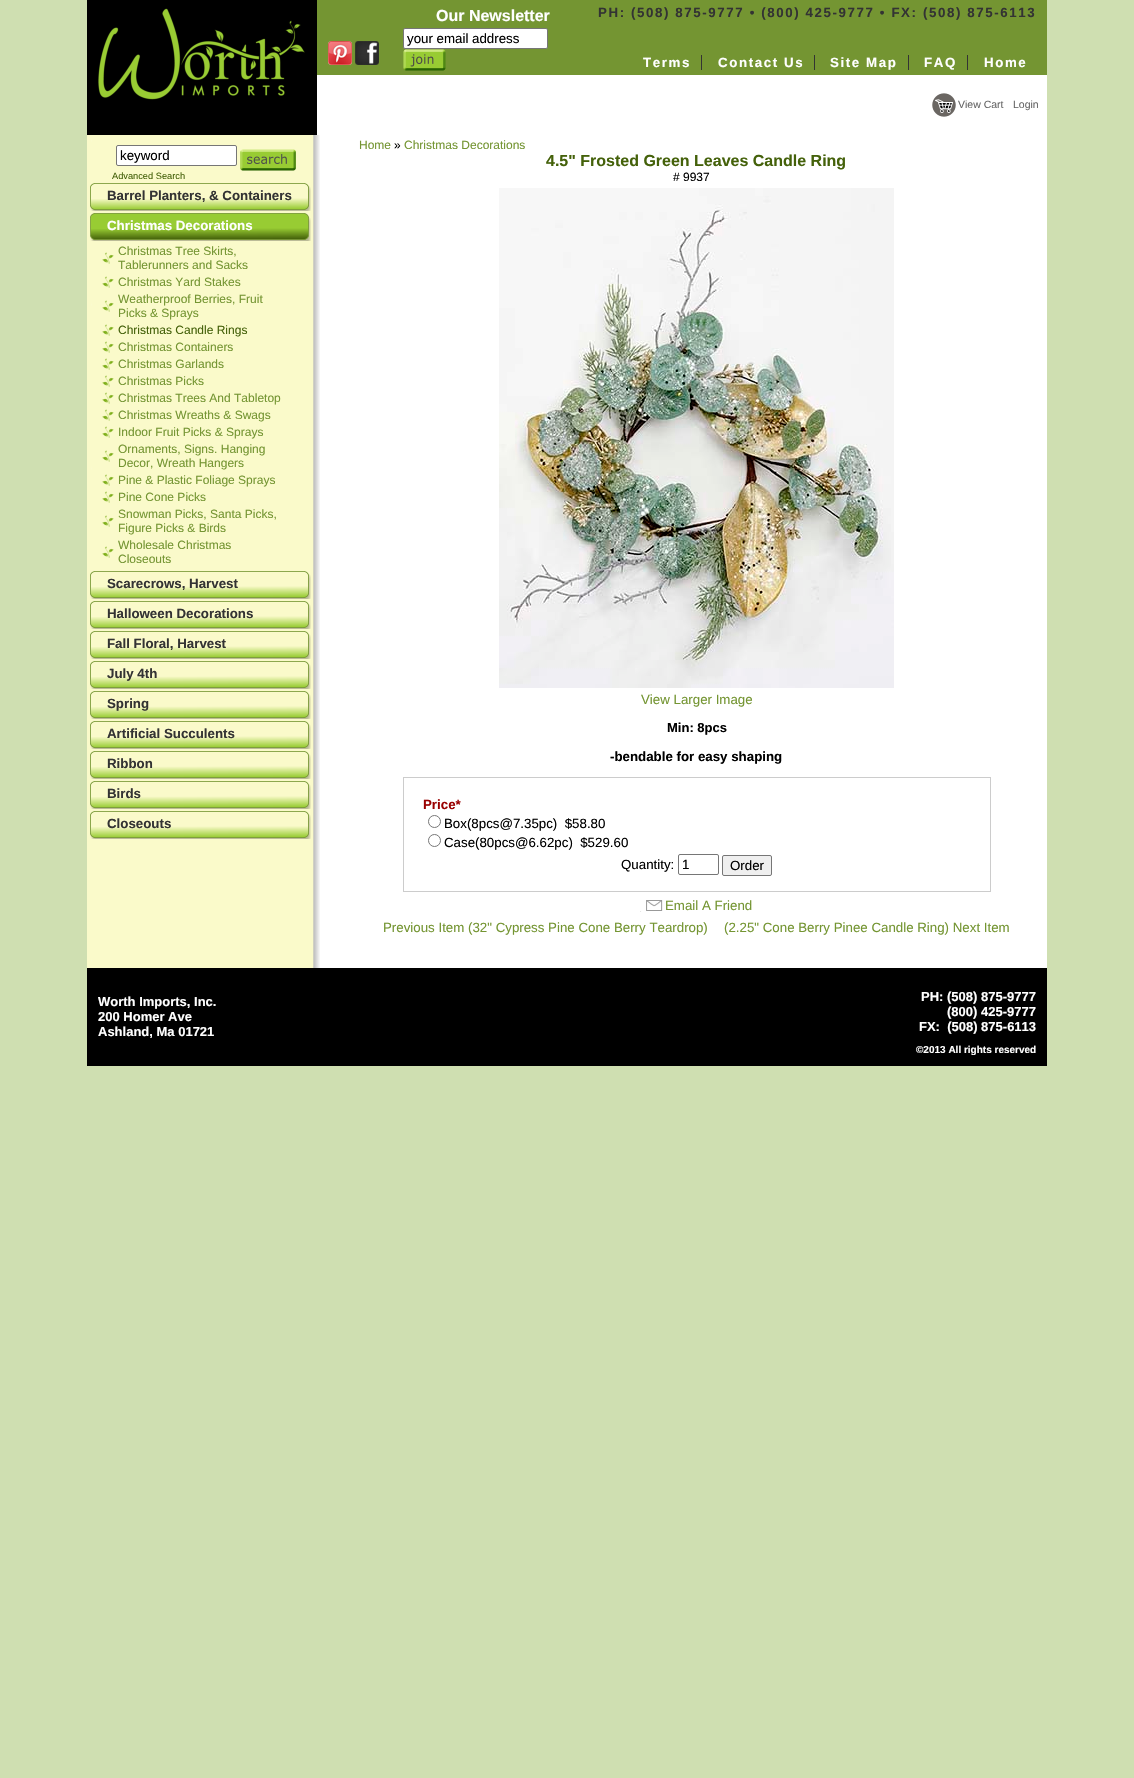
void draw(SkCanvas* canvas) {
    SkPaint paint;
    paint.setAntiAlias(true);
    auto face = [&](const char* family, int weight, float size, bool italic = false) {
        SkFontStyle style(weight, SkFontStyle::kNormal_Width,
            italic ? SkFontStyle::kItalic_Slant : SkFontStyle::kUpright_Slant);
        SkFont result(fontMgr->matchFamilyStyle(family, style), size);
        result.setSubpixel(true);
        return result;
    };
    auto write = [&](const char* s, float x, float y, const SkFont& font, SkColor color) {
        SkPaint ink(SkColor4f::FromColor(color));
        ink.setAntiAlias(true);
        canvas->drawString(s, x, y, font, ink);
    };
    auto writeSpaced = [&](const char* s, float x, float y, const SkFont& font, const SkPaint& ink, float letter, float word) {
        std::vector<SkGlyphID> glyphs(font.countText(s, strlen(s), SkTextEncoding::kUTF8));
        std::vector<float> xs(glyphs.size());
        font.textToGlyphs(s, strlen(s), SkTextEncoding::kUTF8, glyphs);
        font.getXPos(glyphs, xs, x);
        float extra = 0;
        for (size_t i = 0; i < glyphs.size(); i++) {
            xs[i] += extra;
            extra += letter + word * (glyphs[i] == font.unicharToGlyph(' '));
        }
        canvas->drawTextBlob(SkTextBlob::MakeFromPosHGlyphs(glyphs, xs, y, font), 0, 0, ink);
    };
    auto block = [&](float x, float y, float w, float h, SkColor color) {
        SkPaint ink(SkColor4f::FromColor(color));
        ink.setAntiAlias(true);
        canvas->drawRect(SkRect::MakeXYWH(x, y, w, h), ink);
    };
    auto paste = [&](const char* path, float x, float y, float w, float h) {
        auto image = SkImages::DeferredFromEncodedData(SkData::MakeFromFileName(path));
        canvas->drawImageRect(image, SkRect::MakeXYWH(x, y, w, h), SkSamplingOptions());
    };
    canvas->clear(SkColorSetRGB(207, 223, 177));
    block(87, 0, 230, 135, SK_ColorBLACK);
    paste("pic1.png", 98, 8, 207, 92);
    block(317, 0, 271, 75, SkColorSetRGB(116, 149, 50));
    auto kFont1 = face("Liberation Sans", 700, 16);
    write("Our Newsletter", 436, 21, kFont1, SK_ColorWHITE);
    paint.setColor(SK_ColorWHITE);
    canvas->drawRoundRect(SkRect::MakeXYWH(403.5f, 28.5f, 144, 20), 1.5f, 1.5f, paint);
    paint.setStyle(SkPaint::kStroke_Style);
    paint.setStrokeWidth(1);
    paint.setColor(SkColorSetRGB(118, 118, 118));
    canvas->drawRoundRect(SkRect::MakeXYWH(403.5f, 28.5f, 144, 20), 1.5f, 1.5f, paint);
    auto kFont2 = face("Liberation Sans", 400, 13.3f);
    write("your email address", 407, 43, kFont2, SK_ColorBLACK);
    paste("pic2.png", 403, 49, 43, 22);
    paste("pic3.png", 328, 41, 24, 24);
    paste("pic4.png", 355, 41, 24, 24);
    block(588, 0, 459, 75, SkColorSetRGB(116, 149, 50));
    auto kFont3 = face("Liberation Sans", 700, 13.3f);
    paint.setStyle(SkPaint::kFill_Style);
    paint.setColor(SkColorSetRGB(51, 51, 51));
    writeSpaced("PH: (508) 875-9777 • (800) 425-9777 • FX: (508) 875-6113", 598, 17, kFont3, paint, 1.6f, 0);
    paint.setColor(SK_ColorWHITE);
    writeSpaced("Terms", 643, 67, kFont3, paint, 1.6f, 0);
    block(701, 55, 1, 15, SkColorSetRGB(51, 51, 51));
    writeSpaced("Contact Us", 718, 67, kFont3, paint, 1.6f, 0);
    block(814, 55, 1, 15, SkColorSetRGB(51, 51, 51));
    writeSpaced("Site Map", 830, 67, kFont3, paint, 1.6f, 0);
    block(908, 55, 1, 15, SkColorSetRGB(51, 51, 51));
    writeSpaced("FAQ", 924, 67, kFont3, paint, 1.6f, 0);
    block(967, 55, 1, 15, SkColorSetRGB(51, 51, 51));
    writeSpaced("Home", 984, 67, kFont3, paint, 1.6f, 0);
    block(317, 75, 730, 60, SK_ColorWHITE);
    paste("pic5.png", 932, 93, 24, 24);
    auto kFont4 = face("Liberation Sans", 400, 10.5f);
    write("View Cart", 958, 108, kFont4, SkColorSetRGB(102, 102, 102));
    write("Login", 1013, 108, kFont4, SkColorSetRGB(102, 102, 102));
    block(91, 135, 956, 833, SK_ColorWHITE);
    paste("pic6.png", 87, 135, 233, 833);
    canvas->drawRoundRect(SkRect::MakeXYWH(116.5f, 145.5f, 120, 20), 1.5f, 1.5f, paint);
    paint.setStyle(SkPaint::kStroke_Style);
    paint.setColor(SkColorSetRGB(118, 118, 118));
    canvas->drawRoundRect(SkRect::MakeXYWH(116.5f, 145.5f, 120, 20), 1.5f, 1.5f, paint);
    write("keyword", 120, 160, kFont2, SK_ColorBLACK);
    paste("pic7.png", 240, 149, 56, 22);
    auto kFont5 = face("Liberation Sans", 400, 9.25f);
    write("Advanced Search", 112, 179, kFont5, SkColorSetRGB(68, 97, 10));
    paste("pic8.png", 90, 183, 221, 28);
    write("Barrel Planters, & Containers", 107, 200, kFont3, SkColorSetRGB(51, 51, 51));
    paste("pic9.png", 90, 213, 221, 28);
    write("Christmas Decorations", 107, 230, kFont3, SK_ColorWHITE);
    paste("pic10.png", 102, 252, 12, 12);
    auto kFont6 = face("Liberation Sans", 400, 12);
    write("Christmas Tree Skirts,", 118, 255, kFont6, SkColorSetRGB(116, 149, 50));
    write("Tablerunners and Sacks", 118, 269, kFont6, SkColorSetRGB(116, 149, 50));
    paste("pic10.png", 102, 276, 12, 12);
    write("Christmas Yard Stakes", 118, 286, kFont6, SkColorSetRGB(116, 149, 50));
    paste("pic10.png", 102, 300, 12, 12);
    write("Weatherproof Berries, Fruit", 118, 303, kFont6, SkColorSetRGB(116, 149, 50));
    write("Picks & Sprays", 118, 317, kFont6, SkColorSetRGB(116, 149, 50));
    paste("pic10.png", 102, 324, 12, 12);
    write("Christmas Candle Rings", 118, 334, kFont6, SkColorSetRGB(68, 97, 10));
    paste("pic10.png", 102, 341, 12, 12);
    write("Christmas Containers", 118, 351, kFont6, SkColorSetRGB(116, 149, 50));
    paste("pic10.png", 102, 358, 12, 12);
    write("Christmas Garlands", 118, 368, kFont6, SkColorSetRGB(116, 149, 50));
    paste("pic10.png", 102, 375, 12, 12);
    write("Christmas Picks", 118, 385, kFont6, SkColorSetRGB(116, 149, 50));
    paste("pic10.png", 102, 392, 12, 12);
    write("Christmas Trees And Tabletop", 118, 402, kFont6, SkColorSetRGB(116, 149, 50));
    paste("pic10.png", 102, 409, 12, 12);
    write("Christmas Wreaths & Swags", 118, 419, kFont6, SkColorSetRGB(116, 149, 50));
    paste("pic10.png", 102, 426, 12, 12);
    write("Indoor Fruit Picks & Sprays", 118, 436, kFont6, SkColorSetRGB(116, 149, 50));
    paste("pic10.png", 102, 450, 12, 12);
    write("Ornaments, Signs. Hanging", 118, 453, kFont6, SkColorSetRGB(116, 149, 50));
    write("Decor, Wreath Hangers", 118, 467, kFont6, SkColorSetRGB(116, 149, 50));
    paste("pic10.png", 102, 474, 12, 12);
    write("Pine & Plastic Foliage Sprays", 118, 484, kFont6, SkColorSetRGB(116, 149, 50));
    paste("pic10.png", 102, 491, 12, 12);
    write("Pine Cone Picks", 118, 501, kFont6, SkColorSetRGB(116, 149, 50));
    paste("pic10.png", 102, 515, 12, 12);
    write("Snowman Picks, Santa Picks,", 118, 518, kFont6, SkColorSetRGB(116, 149, 50));
    write("Figure Picks & Birds", 118, 532, kFont6, SkColorSetRGB(116, 149, 50));
    paste("pic10.png", 102, 546, 12, 12);
    write("Wholesale Christmas", 118, 549, kFont6, SkColorSetRGB(116, 149, 50));
    write("Closeouts", 118, 563, kFont6, SkColorSetRGB(116, 149, 50));
    paste("pic8.png", 90, 571, 221, 28);
    write("Scarecrows, Harvest", 107, 588, kFont3, SkColorSetRGB(51, 51, 51));
    paste("pic8.png", 90, 601, 221, 28);
    write("Halloween Decorations", 107, 618, kFont3, SkColorSetRGB(51, 51, 51));
    paste("pic11.png", 90, 631, 221, 28);
    write("Fall Floral, Harvest", 107, 648, kFont3, SkColorSetRGB(51, 51, 51));
    paste("pic8.png", 90, 661, 221, 28);
    write("July 4th", 107, 678, kFont3, SkColorSetRGB(51, 51, 51));
    paste("pic8.png", 90, 691, 221, 28);
    write("Spring", 107, 708, kFont3, SkColorSetRGB(51, 51, 51));
    paste("pic8.png", 90, 721, 221, 28);
    write("Artificial Succulents", 107, 738, kFont3, SkColorSetRGB(51, 51, 51));
    paste("pic8.png", 90, 751, 221, 28);
    write("Ribbon", 107, 768, kFont3, SkColorSetRGB(51, 51, 51));
    paste("pic8.png", 90, 781, 221, 28);
    write("Birds", 107, 798, kFont3, SkColorSetRGB(51, 51, 51));
    paste("pic8.png", 90, 811, 221, 28);
    write("Closeouts", 107, 828, kFont3, SkColorSetRGB(51, 51, 51));
    write("Home", 359, 149, kFont6, SkColorSetRGB(116, 149, 50));
    write("»", 394, 149, kFont6, SK_ColorBLACK);
    write("Christmas Decorations", 404, 149, kFont6, SkColorSetRGB(116, 149, 50));
    write("4.5\" Frosted Green Leaves Candle Ring", 546, 166, kFont1, SkColorSetRGB(68, 97, 10));
    write("# 9937", 673, 181, kFont6, SK_ColorBLACK);
    paste("pic12.png", 499, 188, 395, 500);
    write("View Larger Image", 641, 704, kFont2, SkColorSetRGB(116, 149, 50));
    auto kFont7 = face("Liberation Sans", 700, 13);
    write("Min: 8pcs", 667, 732, kFont7, SK_ColorBLACK);
    write("-bendable for easy shaping", 610, 761, kFont3, SK_ColorBLACK);
    paint.setColor(SkColorSetRGB(204, 204, 204));
    canvas->drawRect(SkRect::MakeXYWH(403.5f, 777.5f, 587, 114), paint);
    write("Price*", 423, 809, kFont3, SkColorSetRGB(153, 0, 0));
    paint.setColor(SkColorSetRGB(118, 118, 118));
    canvas->drawCircle(434.5f, 821.5f, 6, paint);
    write("Box(8pcs@7.35pc)  $58.80", 444, 828, kFont2, SK_ColorBLACK);
    canvas->drawCircle(434.5f, 840.5f, 6, paint);
    write("Case(80pcs@6.62pc)  $529.60", 444, 847, kFont2, SK_ColorBLACK);
    write("Quantity:", 621, 869, kFont2, SK_ColorBLACK);
    canvas->drawRoundRect(SkRect::MakeXYWH(678.5f, 854.5f, 40, 20), 1.5f, 1.5f, paint);
    write("1", 682, 869, kFont2, SK_ColorBLACK);
    paint.setStyle(SkPaint::kFill_Style);
    paint.setColor(SkColorSetRGB(239, 239, 239));
    canvas->drawRoundRect(SkRect::MakeXYWH(722.5f, 855.5f, 49, 20), 1.5f, 1.5f, paint);
    paint.setStyle(SkPaint::kStroke_Style);
    paint.setColor(SkColorSetRGB(118, 118, 118));
    canvas->drawRoundRect(SkRect::MakeXYWH(722.5f, 855.5f, 49, 20), 1.5f, 1.5f, paint);
    write("Order", 730, 870, kFont2, SK_ColorBLACK);
    paste("pic13.png", 640, 900, 23, 12);
    write("Email A Friend", 665, 910, kFont2, SkColorSetRGB(116, 149, 50));
    write("Previous Item (32\" Cypress Pine Cone Berry Teardrop)", 383, 932, kFont2, SkColorSetRGB(116, 149, 50));
    write("(2.25\" Cone Berry Pinee Candle Ring) Next Item", 724, 932, kFont2, SkColorSetRGB(116, 149, 50));
    block(87, 968, 960, 98, SK_ColorBLACK);
    write("Worth Imports, Inc.", 98, 1006, kFont7, SK_ColorWHITE);
    write("200 Homer Ave", 98, 1021, kFont7, SK_ColorWHITE);
    write("Ashland, Ma 01721", 98, 1036, kFont7, SK_ColorWHITE);
    write("PH: (508) 875-9777", 921, 1001, kFont7, SK_ColorWHITE);
    write("(800) 425-9777", 947, 1016, kFont7, SK_ColorWHITE);
    write("FX:  (508) 875-6113", 919, 1031, kFont7, SK_ColorWHITE);
    auto kFont8 = face("Liberation Sans", 700, 10);
    write("©2013 All rights reserved", 916, 1053, kFont8, SK_ColorWHITE);
}
